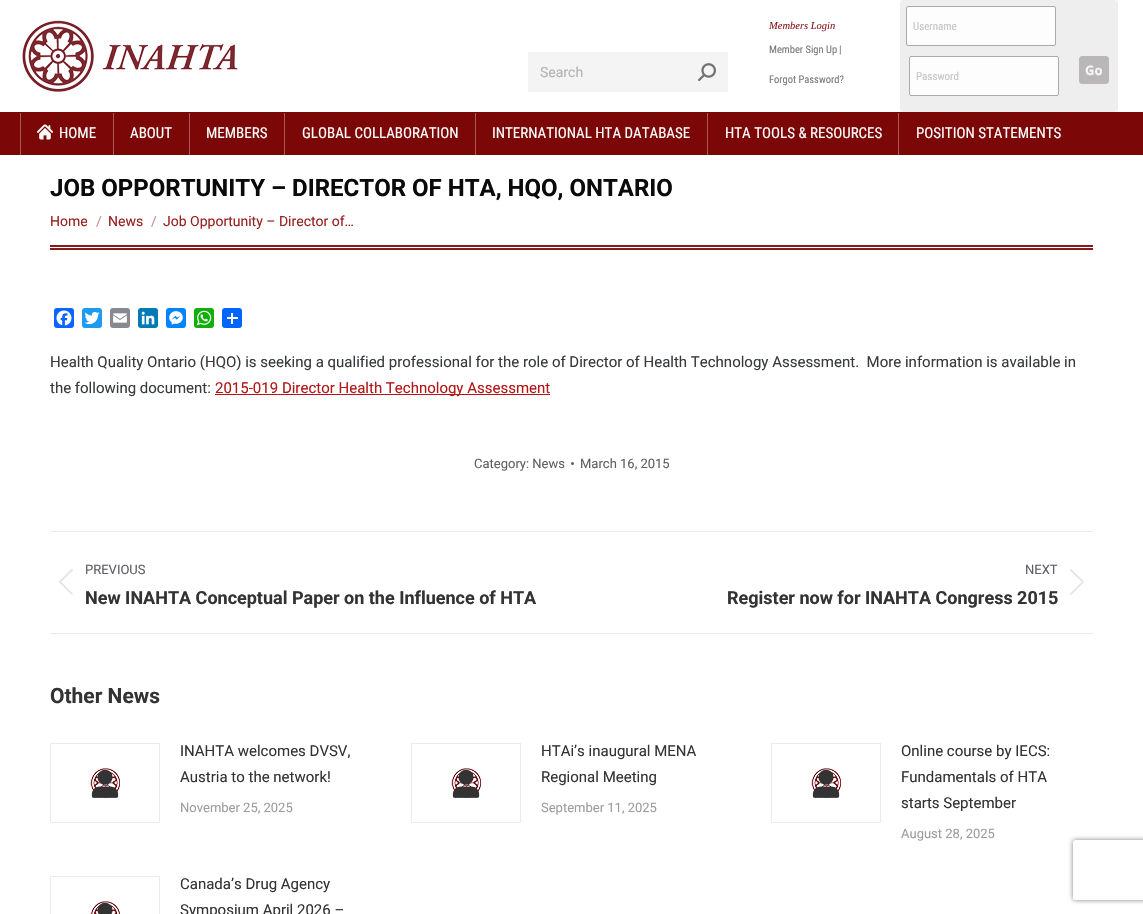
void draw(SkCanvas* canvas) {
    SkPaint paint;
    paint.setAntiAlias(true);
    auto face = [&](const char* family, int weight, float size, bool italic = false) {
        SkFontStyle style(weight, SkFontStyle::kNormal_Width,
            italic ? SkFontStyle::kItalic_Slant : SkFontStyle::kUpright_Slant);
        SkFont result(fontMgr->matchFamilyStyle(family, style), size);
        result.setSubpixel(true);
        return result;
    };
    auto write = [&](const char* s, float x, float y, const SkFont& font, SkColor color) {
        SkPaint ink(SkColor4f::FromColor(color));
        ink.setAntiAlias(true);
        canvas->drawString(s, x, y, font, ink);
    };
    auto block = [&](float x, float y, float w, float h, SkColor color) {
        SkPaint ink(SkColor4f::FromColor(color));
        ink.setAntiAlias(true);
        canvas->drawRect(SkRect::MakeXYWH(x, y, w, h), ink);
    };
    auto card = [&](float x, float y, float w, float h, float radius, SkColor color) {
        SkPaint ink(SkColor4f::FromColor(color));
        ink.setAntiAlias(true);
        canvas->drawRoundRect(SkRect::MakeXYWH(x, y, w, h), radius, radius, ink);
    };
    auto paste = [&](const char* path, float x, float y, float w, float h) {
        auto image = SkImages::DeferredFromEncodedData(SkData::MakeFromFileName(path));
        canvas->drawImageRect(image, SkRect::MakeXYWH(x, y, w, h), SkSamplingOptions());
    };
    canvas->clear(SK_ColorWHITE);
    paste("pic1.png", 22, 20, 216, 72);
    block(528, 52, 200, 40, SkColorSetRGB(244, 244, 244));
    auto kFont1 = face("Roboto", 400, 14);
    write("Search", 540, 77, kFont1, SkColorSetRGB(179, 179, 179));
    paste("pic2.png", 698, 63, 18, 19);
    auto kFont2 = face("Liberation Serif", 400, 10.5f, true);
    write("Members Login", 769, 29, kFont2, SkColorSetRGB(141, 27, 36));
    auto kFont3 = face("Roboto Condensed", 400, 10.5f);
    write("Member Sign Up", 769, 53, kFont3, SkColorSetRGB(123, 121, 121));
    write("|", 839, 53, kFont3, SkColorSetRGB(123, 121, 121));
    write("Forgot Password?", 769, 83, kFont3, SkColorSetRGB(123, 121, 121));
    card(900, 0, 218, 112, 3, SkColorSetRGB(238, 238, 238));
    paint.setColor(SkColorSetRGB(253, 253, 253));
    canvas->drawRoundRect(SkRect::MakeXYWH(906.5f, 6.5f, 149, 39), 1.5f, 1.5f, paint);
    paint.setStyle(SkPaint::kStroke_Style);
    paint.setStrokeWidth(1);
    paint.setColor(SkColorSetRGB(170, 170, 170));
    canvas->drawRoundRect(SkRect::MakeXYWH(906.5f, 6.5f, 149, 39), 1.5f, 1.5f, paint);
    auto kFont4 = face("Roboto Condensed", 400, 11);
    write("Username", 913, 30, kFont4, SkColorSetRGB(196, 197, 201));
    paint.setStyle(SkPaint::kFill_Style);
    paint.setColor(SkColorSetRGB(253, 253, 253));
    canvas->drawRoundRect(SkRect::MakeXYWH(909.5f, 56.5f, 149, 39), 1.5f, 1.5f, paint);
    paint.setStyle(SkPaint::kStroke_Style);
    paint.setColor(SkColorSetRGB(170, 170, 170));
    canvas->drawRoundRect(SkRect::MakeXYWH(909.5f, 56.5f, 149, 39), 1.5f, 1.5f, paint);
    write("Password", 916, 80, kFont4, SkColorSetRGB(196, 197, 201));
    paint.setStyle(SkPaint::kFill_Style);
    paint.setColor(SkColorSetRGB(185, 183, 183));
    canvas->drawRoundRect(SkRect::MakeXYWH(1079.5f, 56.5f, 29, 27), 2.5f, 2.5f, paint);
    paint.setStyle(SkPaint::kStroke_Style);
    canvas->drawRoundRect(SkRect::MakeXYWH(1079.5f, 56.5f, 29, 27), 2.5f, 2.5f, paint);
    auto kFont5 = face("Open Sans", 700, 13);
    write("Go", 1085, 75, kFont5, SkColorSetRGB(247, 247, 247));
    block(0, 112, 1143, 43, SkColorSetRGB(124, 7, 7));
    block(898, 113, 1, 42, SkColorSetRGB(167, 89, 89));
    block(707, 113, 1, 42, SkColorSetRGB(167, 89, 89));
    block(475, 113, 1, 42, SkColorSetRGB(167, 89, 89));
    block(284, 113, 1, 42, SkColorSetRGB(167, 89, 89));
    block(189, 113, 1, 42, SkColorSetRGB(167, 89, 89));
    block(113, 113, 1, 42, SkColorSetRGB(167, 89, 89));
    block(20, 113, 1, 42, SkColorSetRGB(167, 89, 89));
    paste("pic3.png", 37, 124, 16, 16);
    auto kFont6 = face("Roboto Condensed", 400, 15);
    write("HOME", 59, 138, kFont6, SK_ColorWHITE);
    write("ABOUT", 130, 138, kFont6, SK_ColorWHITE);
    write("MEMBERS", 206, 138, kFont6, SK_ColorWHITE);
    write("GLOBAL COLLABORATION", 302, 138, kFont6, SK_ColorWHITE);
    write("INTERNATIONAL HTA DATABASE", 492, 138, kFont6, SK_ColorWHITE);
    write("HTA TOOLS & RESOURCES", 725, 138, kFont6, SK_ColorWHITE);
    write("POSITION STATEMENTS", 916, 138, kFont6, SK_ColorWHITE);
    auto kFont7 = face("Roboto", 700, 24);
    write("JOB OPPORTUNITY – DIRECTOR OF HTA, HQO, ONTARIO", 50, 196, kFont7, SkColorSetRGB(10, 10, 10));
    write("Home", 50, 226, kFont1, SkColorSetRGB(153, 33, 33));
    write("/", 96, 226, kFont1, SkColorSetRGB(204, 144, 144));
    write("News", 108, 226, kFont1, SkColorSetRGB(153, 33, 33));
    write("/", 151, 226, kFont1, SkColorSetRGB(204, 144, 144));
    write("Job Opportunity – Director of…", 163, 226, kFont1, SkColorSetRGB(153, 33, 33));
    block(50, 245, 1043, 2, SkColorSetRGB(135, 27, 27));
    block(50, 248, 1043, 2, SkColorSetRGB(135, 27, 27));
    card(54, 308, 20, 20, 3, SkColorSetRGB(8, 102, 255));
    paste("pic4.png", 56, 310, 16, 16);
    card(82, 308, 20, 20, 3, SkColorSetRGB(29, 155, 240));
    paste("pic5.png", 84, 311, 16, 14);
    card(110, 308, 20, 20, 3, SkColorSetRGB(136, 137, 144));
    paste("pic6.png", 113, 313, 14, 10);
    card(138, 308, 20, 20, 3, SkColorSetRGB(0, 123, 181));
    paste("pic7.png", 141, 311, 14, 14);
    card(166, 308, 20, 20, 3, SkColorSetRGB(0, 132, 255));
    paste("pic8.png", 169, 311, 14, 14);
    card(194, 308, 20, 20, 3, SkColorSetRGB(18, 175, 10));
    paste("pic9.png", 196, 310, 16, 16);
    card(222, 308, 20, 20, 3, SkColorSetRGB(1, 102, 255));
    block(231, 313, 2, 11, SK_ColorWHITE);
    block(227, 317, 11, 2, SK_ColorWHITE);
    auto kFont8 = face("Roboto", 400, 15);
    write("Health Quality Ontario (HQO) is seeking a qualified professional for the role of Director of Health Technology Assessment.  More information is available in", 50, 367, kFont8, SkColorSetRGB(56, 58, 61));
    write("the following document:", 50, 393, kFont8, SkColorSetRGB(56, 58, 61));
    block(215, 394, 335, 1, SkColorSetRGB(181, 21, 21));
    write("2015-019 Director Health Technology Assessment", 215, 393, kFont8, SkColorSetRGB(181, 21, 21));
    auto kFont9 = face("Roboto", 400, 13);
    write("Category: News", 474, 468, kFont9, SkColorSetRGB(94, 96, 102));
    paint.setStyle(SkPaint::kFill_Style);
    paint.setColor(SkColorSetRGB(94, 96, 102));
    canvas->drawCircle(572.5f, 463.5f, 1.5f, paint);
    write("March 16, 2015", 580, 468, kFont9, SkColorSetRGB(94, 96, 102));
    block(50, 531, 1043, 1, SkColorSetRGB(235, 235, 235));
    block(50, 633, 1043, 1, SkColorSetRGB(235, 235, 235));
    paste("pic10.png", 59, 569, 14, 26);
    write("PREVIOUS", 85, 574, kFont9, SkColorSetRGB(94, 96, 102));
    auto kFont10 = face("Roboto", 700, 18);
    write("New INAHTA Conceptual Paper on the Influence of HTA", 85, 604, kFont10, SkColorSetRGB(51, 51, 51));
    write("NEXT", 1025, 574, kFont9, SkColorSetRGB(94, 96, 102));
    paste("pic11.png", 1070, 569, 14, 26);
    write("Register now for INAHTA Congress 2015", 727, 604, kFont10, SkColorSetRGB(51, 51, 51));
    auto kFont11 = face("Roboto", 700, 21);
    write("Other News", 50, 703, kFont11, SkColorSetRGB(51, 51, 51));
    paint.setStyle(SkPaint::kStroke_Style);
    paint.setColor(SkColorSetRGB(235, 235, 235));
    canvas->drawRect(SkRect::MakeXYWH(50.5f, 743.5f, 109, 79), paint);
    paste("pic12.png", 90, 768, 30, 30);
    paste("pic13.png", 91, 769, 28, 29);
    write("INAHTA welcomes DVSV,", 180, 756, kFont8, SkColorSetRGB(51, 51, 51));
    write("Austria to the network!", 180, 782, kFont8, SkColorSetRGB(51, 51, 51));
    write("November 25, 2025", 180, 812, kFont9, SkColorSetRGB(156, 157, 158));
    canvas->drawRect(SkRect::MakeXYWH(411.5f, 743.5f, 109, 79), paint);
    paste("pic12.png", 451, 768, 30, 30);
    paste("pic13.png", 452, 769, 28, 29);
    write("HTAi’s inaugural MENA", 541, 756, kFont8, SkColorSetRGB(51, 51, 51));
    write("Regional Meeting", 541, 782, kFont8, SkColorSetRGB(51, 51, 51));
    write("September 11, 2025", 541, 812, kFont9, SkColorSetRGB(156, 157, 158));
    canvas->drawRect(SkRect::MakeXYWH(771.5f, 743.5f, 109, 79), paint);
    paste("pic12.png", 811, 768, 30, 30);
    paste("pic13.png", 812, 769, 28, 29);
    write("Online course by IECS:", 901, 756, kFont8, SkColorSetRGB(51, 51, 51));
    write("Fundamentals of HTA", 901, 782, kFont8, SkColorSetRGB(51, 51, 51));
    write("starts September", 901, 808, kFont8, SkColorSetRGB(51, 51, 51));
    write("August 28, 2025", 901, 838, kFont9, SkColorSetRGB(156, 157, 158));
    canvas->drawRect(SkRect::MakeXYWH(50.5f, 876.5f, 109, 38), paint);
    paste("pic14.png", 90, 901, 30, 13);
    paste("pic15.png", 97, 902, 16, 12);
    write("Canada’s Drug Agency", 180, 889, kFont8, SkColorSetRGB(51, 51, 51));
    write("Symposium April 2026 –", 180, 915, kFont8, SkColorSetRGB(51, 51, 51));
    canvas->save();
    canvas->clipPath(SkPathBuilder(SkPathFillType::kEvenOdd).moveTo(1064, 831).lineTo(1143, 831).lineTo(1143, 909).lineTo(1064, 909).close().moveTo(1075, 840).lineTo(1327, 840).cubicTo(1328, 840, 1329, 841, 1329, 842).lineTo(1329, 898).cubicTo(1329, 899, 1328, 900, 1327, 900).lineTo(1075, 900).cubicTo(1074, 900, 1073, 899, 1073, 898).lineTo(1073, 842).cubicTo(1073, 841, 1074, 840, 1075, 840).close().detach(), true);
    paint.setStyle(SkPaint::kFill_Style);
    paint.setColor(SkColorSetRGB(128, 128, 128));
    paint.setMaskFilter(SkMaskFilter::MakeBlur(kNormal_SkBlurStyle, 2.5f));
    canvas->drawRoundRect(SkRect::MakeXYWH(1073, 840, 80, 60), 2, 2, paint);
    paint.setMaskFilter(nullptr);
    canvas->restore();
}
